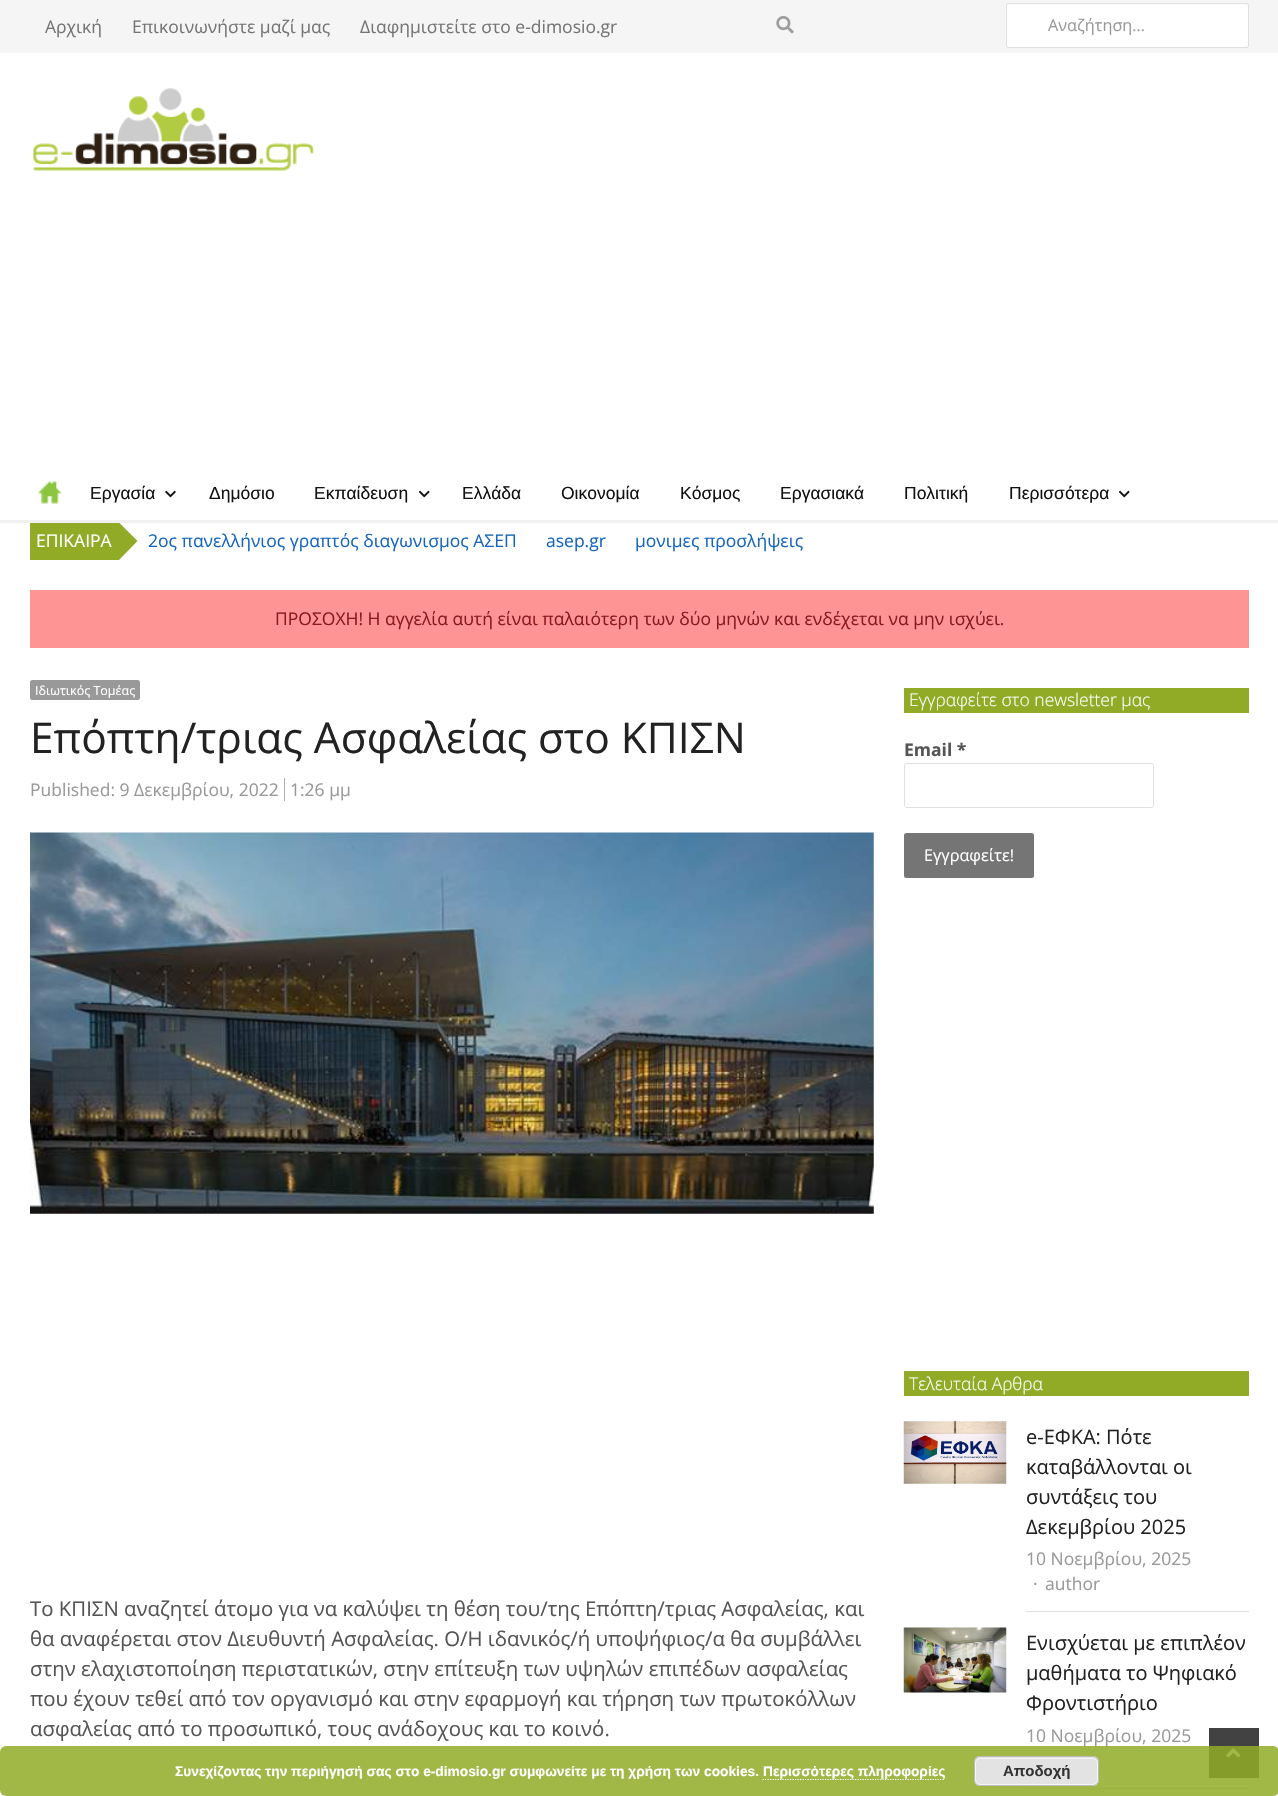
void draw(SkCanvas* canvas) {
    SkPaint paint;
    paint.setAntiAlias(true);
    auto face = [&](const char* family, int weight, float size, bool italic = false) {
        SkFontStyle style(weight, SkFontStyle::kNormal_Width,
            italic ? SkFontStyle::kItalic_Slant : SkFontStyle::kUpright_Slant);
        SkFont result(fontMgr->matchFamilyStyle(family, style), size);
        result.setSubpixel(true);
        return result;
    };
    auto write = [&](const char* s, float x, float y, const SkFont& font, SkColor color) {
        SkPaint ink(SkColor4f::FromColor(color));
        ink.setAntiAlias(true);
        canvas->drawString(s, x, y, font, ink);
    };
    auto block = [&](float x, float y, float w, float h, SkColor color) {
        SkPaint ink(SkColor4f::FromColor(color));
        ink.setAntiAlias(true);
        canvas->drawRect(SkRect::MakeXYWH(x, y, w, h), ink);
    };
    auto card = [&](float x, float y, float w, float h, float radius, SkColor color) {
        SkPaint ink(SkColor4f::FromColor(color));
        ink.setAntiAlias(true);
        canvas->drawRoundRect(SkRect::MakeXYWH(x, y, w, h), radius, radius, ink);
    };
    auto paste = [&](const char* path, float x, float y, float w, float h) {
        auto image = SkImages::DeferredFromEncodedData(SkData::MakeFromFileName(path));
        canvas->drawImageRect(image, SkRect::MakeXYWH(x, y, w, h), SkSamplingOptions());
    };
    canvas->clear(SK_ColorWHITE);
    block(0, 0, 1278, 53, SkColorSetRGB(245, 245, 245));
    auto kFont1 = face("Open Sans", 400, 17.5f);
    write("Αρχική", 45, 33, kFont1, SkColorSetRGB(117, 117, 117));
    write("Επικοινωνήστε μαζί μας", 132, 33, kFont1, SkColorSetRGB(117, 117, 117));
    write("Διαφημιστείτε στο e-dimosio.gr", 360, 33, kFont1, SkColorSetRGB(117, 117, 117));
    paste("pic1.png", 776, 16, 18, 18);
    card(1006, 3, 243, 45, 2.5f, SK_ColorWHITE);
    paint.setStyle(SkPaint::kStroke_Style);
    paint.setStrokeWidth(1);
    paint.setColor(SkColorSetARGB(31, 0, 0, 0));
    canvas->drawRoundRect(SkRect::MakeXYWH(1006.5f, 3.5f, 242, 44), 2, 2, paint);
    auto kFont2 = face("Open Sans", 400, 16.25f);
    write("Αναζήτηση…", 1048, 31, kFont2, SkColorSetRGB(153, 153, 153));
    paste("pic2.png", 33, 88, 281, 83);
    paint.setStyle(SkPaint::kFill_Style);
    paint.setColor(SkColorSetRGB(145, 171, 39));
    canvas->drawPath(SkPathBuilder().moveTo(119, 560).lineTo(119, 522.5f).lineTo(137.5f, 541).close().detach(), paint);
    block(0, 520, 1278, 3, SkColorSetRGB(240, 240, 240));
    paste("pic3.png", 37, 481, 25, 23);
    auto kFont3 = face("Liberation Sans", 400, 17.5f);
    write("Εργασία", 90, 499, kFont3, SkColorSetRGB(18, 18, 18));
    paste("pic4.png", 165, 490, 11, 8);
    write("Δημόσιο", 209, 499, kFont3, SkColorSetRGB(18, 18, 18));
    write("Εκπαίδευση", 314, 499, kFont3, SkColorSetRGB(18, 18, 18));
    paste("pic5.png", 419, 490, 11, 8);
    write("Ελλάδα", 462, 499, kFont3, SkColorSetRGB(18, 18, 18));
    write("Οικονομία", 561, 499, kFont3, SkColorSetRGB(18, 18, 18));
    write("Κόσμος", 680, 499, kFont3, SkColorSetRGB(18, 18, 18));
    write("Εργασιακά", 780, 499, kFont3, SkColorSetRGB(18, 18, 18));
    write("Πολιτική", 904, 499, kFont3, SkColorSetRGB(18, 18, 18));
    write("Περισσότερα", 1009, 499, kFont3, SkColorSetRGB(18, 18, 18));
    paste("pic5.png", 1119, 490, 11, 8);
    block(30, 523, 89, 37, SkColorSetRGB(145, 171, 39));
    write("ΕΠΙΚΑΙΡΑ", 36, 547, kFont1, SK_ColorWHITE);
    write("2ος πανελλήνιος γραπτός διαγωνισμος ΑΣΕΠ", 148, 547, kFont1, SkColorSetRGB(21, 101, 192));
    write("asep.gr", 546, 547, kFont1, SkColorSetRGB(21, 101, 192));
    write("μονιμες προσλήψεις", 635, 547, kFont1, SkColorSetRGB(21, 101, 192));
    block(30, 590, 1219, 58, SkColorSetRGB(255, 148, 148));
    write("ΠΡΟΣΟΧΗ! Η αγγελία αυτή είναι παλαιότερη των δύο μηνών και ενδέχεται να μην ισχύει.", 275, 625, kFont1, SkColorSetRGB(139, 24, 32));
    card(30, 680, 110, 20, 2.5f, SkColorSetRGB(153, 153, 153));
    auto kFont4 = face("Open Sans", 400, 12.5f);
    write("Ιδιωτικός Τομέας", 35, 695, kFont4, SK_ColorWHITE);
    auto kFont5 = face("Open Sans", 400, 42.5f);
    write("Επόπτη/τριας Ασφαλείας στο ΚΠΙΣΝ", 30, 753, kFont5, SkColorSetRGB(34, 34, 34));
    write("Published: 9 Δεκεμβρίου, 2022", 30, 796, kFont1, SkColorSetRGB(153, 153, 153));
    write("1:26 μμ", 290, 796, kFont1, SkColorSetRGB(153, 153, 153));
    block(284, 778, 1, 23, SkColorSetRGB(172, 172, 172));
    paste("pic6.png", 30, 832, 844, 382);
    auto kFont6 = face("Open Sans", 400, 20.4f);
    write("Το ΚΠΙΣΝ αναζητεί άτομο για να καλύψει τη θέση του/της Επόπτη/τριας Ασφαλείας, και", 30, 1616, kFont6, SkColorSetRGB(85, 85, 85));
    write("θα αναφέρεται στον Διευθυντή Ασφαλείας. Ο/Η ιδανικός/ή υποψήφιος/α θα συμβάλλει", 30, 1646, kFont6, SkColorSetRGB(85, 85, 85));
    write("στην ελαχιστοποίηση περιστατικών, στην επίτευξη των υψηλών επιπέδων ασφαλείας", 30, 1676, kFont6, SkColorSetRGB(85, 85, 85));
    write("που έχουν τεθεί από τον οργανισμό και στην εφαρμογή και τήρηση των πρωτοκόλλων", 30, 1706, kFont6, SkColorSetRGB(85, 85, 85));
    write("ασφαλείας από το προσωπικό, τους ανάδοχους και το κοινό.", 30, 1736, kFont6, SkColorSetRGB(85, 85, 85));
    block(904, 688, 345, 25, SkColorSetRGB(145, 171, 39));
    auto kFont7 = face("Open Sans", 300, 17.5f);
    write("Εγγραφείτε στο newsletter μας", 909, 706, kFont7, SK_ColorWHITE);
    auto kFont8 = face("Open Sans", 700, 17.5f);
    write("Email *", 904, 756, kFont8, SkColorSetRGB(85, 85, 85));
    paint.setStyle(SkPaint::kStroke_Style);
    paint.setColor(SkColorSetRGB(224, 224, 224));
    canvas->drawRoundRect(SkRect::MakeXYWH(904.5f, 763.5f, 249, 44), 2, 2, paint);
    card(904, 833, 130, 45, 2.5f, SkColorSetRGB(117, 117, 117));
    write("Εγγραφείτε!", 924, 861, kFont2, SK_ColorWHITE);
    block(904, 1371, 345, 25, SkColorSetRGB(145, 171, 39));
    write("Τελευταία Αρθρα", 909, 1390, kFont7, SK_ColorWHITE);
    paste("pic7.png", 903, 1421, 104, 63);
    auto kFont9 = face("Open Sans", 400, 20);
    write("e-ΕΦΚΑ: Πότε", 1026, 1444, kFont9, SkColorSetRGB(34, 34, 34));
    write("καταβάλλονται οι", 1026, 1474, kFont9, SkColorSetRGB(34, 34, 34));
    write("συντάξεις του", 1026, 1504, kFont9, SkColorSetRGB(34, 34, 34));
    write("Δεκεμβρίου 2025", 1026, 1534, kFont9, SkColorSetRGB(34, 34, 34));
    write("10 Νοεμβρίου, 2025", 1026, 1565, kFont1, SkColorSetRGB(153, 153, 153));
    write("·", 1033, 1590, kFont1, SkColorSetRGB(153, 153, 153));
    write("author", 1045, 1590, kFont1, SkColorSetRGB(153, 153, 153));
    block(1026, 1611, 223, 1, SkColorSetRGB(224, 224, 224));
    paste("pic8.png", 903, 1627, 104, 66);
    write("Ενισχύεται με επιπλέον", 1026, 1650, kFont9, SkColorSetRGB(34, 34, 34));
    write("μαθήματα το Ψηφιακό", 1026, 1680, kFont9, SkColorSetRGB(34, 34, 34));
    write("Φροντιστήριο", 1026, 1710, kFont9, SkColorSetRGB(34, 34, 34));
    write("10 Νοεμβρίου, 2025", 1026, 1742, kFont1, SkColorSetRGB(153, 153, 153));
    block(1026, 1788, 223, 1, SkColorSetRGB(224, 224, 224));
    block(1209, 1728, 50, 50, SkColorSetRGB(66, 66, 66));
    paste("pic9.png", 1226, 1748, 15, 10);
    card(0, 1746, 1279, 50, 6, SkColorSetARGB(217, 145, 171, 39));
    auto kFont10 = face("Liberation Sans", 700, 13.75f);
    write("Συνεχίζοντας την περιήγησή σας στο e-dimosio.gr συμφωνείτε με τη χρήση των cookies.", 175, 1776, kFont10, SK_ColorWHITE);
    paint.setStrokeWidth(1.2f);
    paint.setColor(SK_ColorWHITE);
    paint.setPathEffect(SkDashPathEffect::Make({{1.25f, 1.25f}}, 0));
    canvas->drawPath(SkPathBuilder().moveTo(762.5f, 1779.5f).lineTo(945, 1779.5f).detach(), paint);
    paint.setPathEffect(nullptr);
    write("Περισσότερες πληροφορίες", 763, 1776, kFont10, SK_ColorWHITE);
    card(974, 1756, 125, 30, 6, SkColorSetRGB(227, 227, 227));
    paint.setStrokeWidth(1);
    paint.setColor(SkColorSetRGB(246, 246, 246));
    canvas->drawRoundRect(SkRect::MakeXYWH(975.5f, 1758.5f, 122, 26), 4.5f, 4.5f, paint);
    paint.setColor(SkColorSetRGB(187, 187, 187));
    canvas->drawRoundRect(SkRect::MakeXYWH(974.5f, 1756.5f, 124, 29), 5.5f, 5.5f, paint);
    auto kFont11 = face("Liberation Sans", 700, 15);
    write("Αποδοχή", 1003, 1776, kFont11, SkColorSetRGB(51, 51, 51));
}
